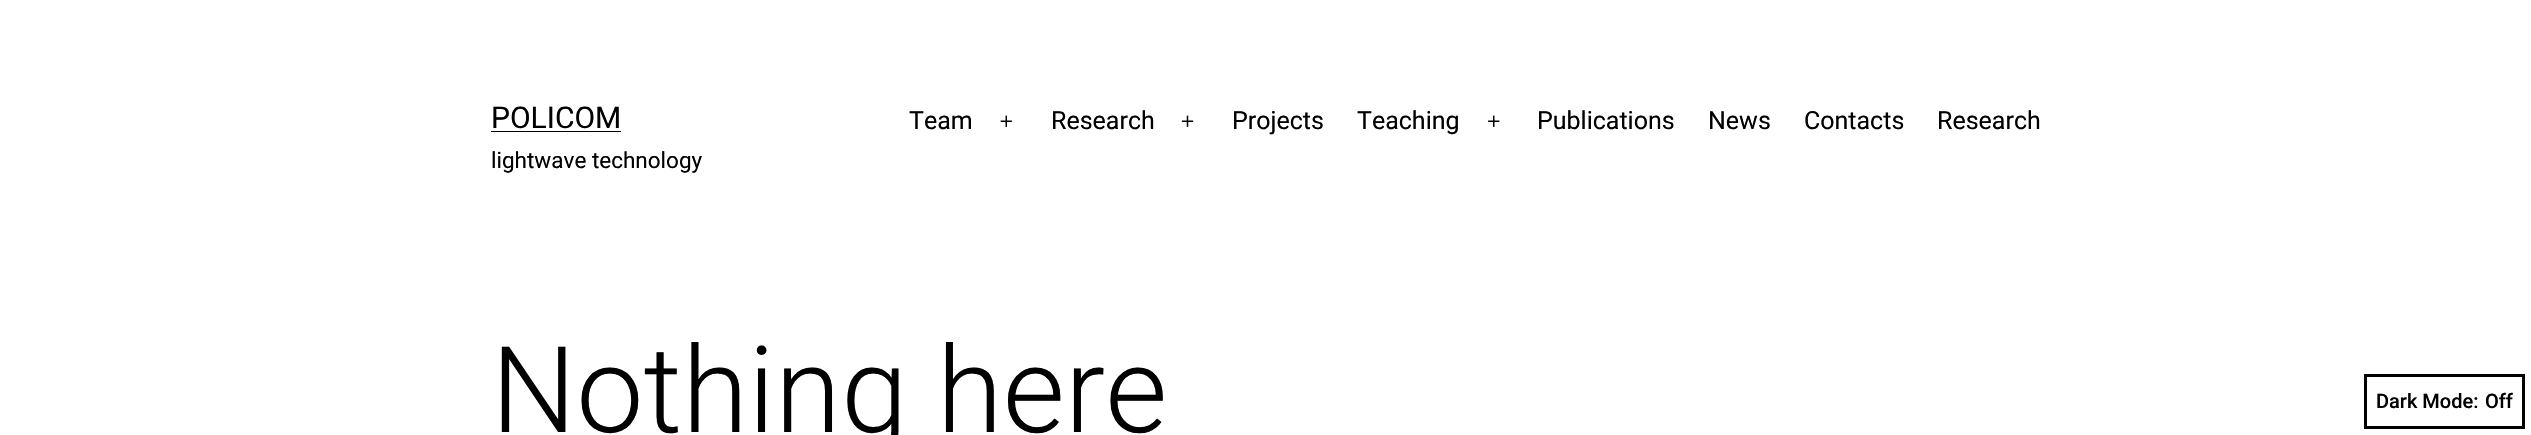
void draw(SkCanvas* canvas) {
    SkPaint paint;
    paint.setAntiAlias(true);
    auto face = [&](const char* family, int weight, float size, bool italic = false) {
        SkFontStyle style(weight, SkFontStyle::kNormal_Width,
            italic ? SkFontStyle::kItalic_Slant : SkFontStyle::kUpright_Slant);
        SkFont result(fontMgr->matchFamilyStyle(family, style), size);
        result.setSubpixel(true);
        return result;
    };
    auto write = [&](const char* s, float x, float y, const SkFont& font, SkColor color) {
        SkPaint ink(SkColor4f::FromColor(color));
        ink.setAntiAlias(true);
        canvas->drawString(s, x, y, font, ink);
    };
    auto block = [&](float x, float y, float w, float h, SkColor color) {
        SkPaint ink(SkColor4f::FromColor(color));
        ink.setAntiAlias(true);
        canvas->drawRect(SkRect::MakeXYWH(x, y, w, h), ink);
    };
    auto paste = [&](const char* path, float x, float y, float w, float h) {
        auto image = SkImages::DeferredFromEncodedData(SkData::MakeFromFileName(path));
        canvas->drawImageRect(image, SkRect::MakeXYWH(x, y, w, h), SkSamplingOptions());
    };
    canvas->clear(SK_ColorWHITE);
    auto kFont1 = face("Roboto", 400, 30);
    write("POLICOM", 491, 128, kFont1, SK_ColorBLACK);
    block(491, 131, 130, 1, SK_ColorBLACK);
    auto kFont2 = face("Roboto", 400, 22.5f);
    write("lightwave technology", 491, 168, kFont2, SK_ColorBLACK);
    auto kFont3 = face("Roboto", 400, 25);
    write("Team", 909, 129, kFont3, SK_ColorBLACK);
    paste("pic1.png", 1000, 115, 12, 12);
    write("Research", 1051, 129, kFont3, SK_ColorBLACK);
    paste("pic2.png", 1181, 115, 13, 12);
    write("Projects", 1232, 129, kFont3, SK_ColorBLACK);
    write("Teaching", 1357, 129, kFont3, SK_ColorBLACK);
    paste("pic3.png", 1488, 115, 12, 12);
    write("Publications", 1537, 129, kFont3, SK_ColorBLACK);
    write("News", 1708, 129, kFont3, SK_ColorBLACK);
    write("Contacts", 1804, 129, kFont3, SK_ColorBLACK);
    write("Research", 1937, 129, kFont3, SK_ColorBLACK);
    auto kFont4 = face("Roboto", 300, 120);
    write("Nothing here", 491, 432, kFont4, SK_ColorBLACK);
    paint.setStyle(SkPaint::kStroke_Style);
    paint.setStrokeWidth(3);
    paint.setColor(SK_ColorBLACK);
    canvas->drawRect(SkRect::MakeXYWH(2365.5f, 375.5f, 158, 52), paint);
    auto kFont5 = face("Roboto", 500, 20);
    write("Dark Mode:", 2376, 408, kFont5, SK_ColorBLACK);
    write("Off", 2485, 408, kFont5, SK_ColorBLACK);
}
